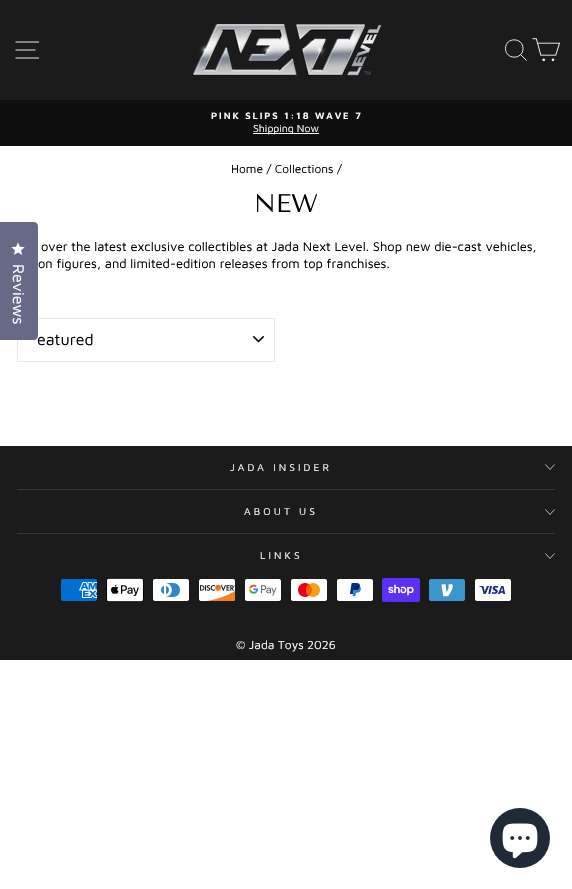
void draw(SkCanvas* canvas) {
    SkPaint paint;
    paint.setAntiAlias(true);
    auto face = [&](const char* family, int weight, float size, bool italic = false) {
        SkFontStyle style(weight, SkFontStyle::kNormal_Width,
            italic ? SkFontStyle::kItalic_Slant : SkFontStyle::kUpright_Slant);
        SkFont result(fontMgr->matchFamilyStyle(family, style), size);
        result.setSubpixel(true);
        return result;
    };
    auto write = [&](const char* s, float x, float y, const SkFont& font, SkColor color) {
        SkPaint ink(SkColor4f::FromColor(color));
        ink.setAntiAlias(true);
        canvas->drawString(s, x, y, font, ink);
    };
    auto writeSpaced = [&](const char* s, float x, float y, const SkFont& font, const SkPaint& ink, float letter, float word) {
        std::vector<SkGlyphID> glyphs(font.countText(s, strlen(s), SkTextEncoding::kUTF8));
        std::vector<float> xs(glyphs.size());
        font.textToGlyphs(s, strlen(s), SkTextEncoding::kUTF8, glyphs);
        font.getXPos(glyphs, xs, x);
        float extra = 0;
        for (size_t i = 0; i < glyphs.size(); i++) {
            xs[i] += extra;
            extra += letter + word * (glyphs[i] == font.unicharToGlyph(' '));
        }
        canvas->drawTextBlob(SkTextBlob::MakeFromPosHGlyphs(glyphs, xs, y, font), 0, 0, ink);
    };
    auto block = [&](float x, float y, float w, float h, SkColor color) {
        SkPaint ink(SkColor4f::FromColor(color));
        ink.setAntiAlias(true);
        canvas->drawRect(SkRect::MakeXYWH(x, y, w, h), ink);
    };
    auto paste = [&](const char* path, float x, float y, float w, float h) {
        auto image = SkImages::DeferredFromEncodedData(SkData::MakeFromFileName(path));
        canvas->drawImageRect(image, SkRect::MakeXYWH(x, y, w, h), SkSamplingOptions());
    };
    canvas->clear(SK_ColorWHITE);
    paste("pic4.png", 253, 336, 11, 7);
    paint.setStyle(SkPaint::kStroke_Style);
    paint.setStrokeWidth(1);
    paint.setColor(SkColorSetRGB(232, 232, 225));
    canvas->drawRect(SkRect::MakeXYWH(17.5f, 318.5f, 257, 43), paint);
    auto kFont1 = face("Maven Pro", 400, 16);
    write("eatured", 37, 345, kFont1, SK_ColorBLACK);
    paint.setStyle(SkPaint::kFill_Style);
    paint.setColor(SkColorSetRGB(103, 105, 134));
    canvas->drawPath(SkPathBuilder().moveTo(-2, 222).lineTo(34, 222).cubicTo(36, 222, 38, 224, 38, 226).lineTo(38, 336).cubicTo(38, 338, 36, 340, 34, 340).lineTo(-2, 340).close().detach(), paint);
    paste("pic1.png", 11, 242, 14, 13);
    canvas->save();
    canvas->rotate(90.1f, 13, 264);
    write("Reviews", 13, 264, kFont1, SK_ColorWHITE);
    canvas->restore();
    block(0, 0, 572, 100, SkColorSetRGB(27, 27, 27));
    paint.setStyle(SkPaint::kStroke_Style);
    paint.setStrokeWidth(0.9f);
    paint.setColor(SK_ColorWHITE);
    canvas->drawPath(SkPathBuilder().moveTo(15.5f, 42).lineTo(39, 42).moveTo(15.5f, 50).lineTo(35.5f, 50).moveTo(15.5f, 58).lineTo(39, 58).detach(), paint);
    paste("pic2.png", 192, 24, 190, 52);
    canvas->drawPath(SkPathBuilder().moveTo(523, 48.5f).cubicTo(523, 60, 505.5f, 60, 505.5f, 48.5f).cubicTo(505.5f, 37, 523, 37, 523, 48.5f).close().moveTo(526.5f, 60.5f).lineTo(520.5f, 54.5f).detach(), paint);
    paste("pic3.png", 532, 38, 28, 24);
    block(0, 100, 572, 46, SkColorSetRGB(15, 15, 15));
    auto kFont2 = face("Maven Pro", 600, 9.5f);
    paint.setStyle(SkPaint::kFill_Style);
    writeSpaced("PINK SLIPS 1:18 WAVE 7", 211, 119, kFont2, paint, 1.9f, 0);
    block(253, 133, 66, 1, SK_ColorWHITE);
    auto kFont3 = face("Maven Pro", 400, 10.5f);
    write("Shipping Now", 253, 132, kFont3, SK_ColorWHITE);
    auto kFont4 = face("Maven Pro", 400, 12);
    write("Home / Collections /", 231, 173, kFont4, SK_ColorBLACK);
    auto kFont5 = face("Tenor Sans", 400, 25.5f);
    write("NEW", 254, 212, kFont5, SK_ColorBLACK);
    auto kFont6 = face("Maven Pro", 400, 12.9f);
    write("over the latest exclusive collectibles at Jada Next Level. Shop new die-cast vehicles,", 41, 251, kFont6, SK_ColorBLACK);
    write("on figures, and limited-edition releases from top franchises.", 38, 268, kFont6, SK_ColorBLACK);
    block(0, 446, 572, 214, SkColorSetRGB(27, 27, 27));
    auto kFont7 = face("Maven Pro", 400, 10.25f);
    writeSpaced("JADA INSIDER", 230, 471, kFont7, paint, 3.1f, 0);
    paint.setStyle(SkPaint::kStroke_Style);
    paint.setStrokeWidth(0.7f);
    canvas->drawPath(SkPathBuilder().moveTo(545.5f, 464.5f).lineTo(550, 469.5f).lineTo(554.5f, 464.5f).detach(), paint);
    block(17, 489, 538, 1, SkColorSetRGB(54, 54, 54));
    paint.setStyle(SkPaint::kFill_Style);
    writeSpaced("ABOUT US", 244, 515, kFont7, paint, 3.1f, 0);
    paint.setStyle(SkPaint::kStroke_Style);
    canvas->drawPath(SkPathBuilder().moveTo(545.5f, 509.5f).lineTo(550, 514.5f).lineTo(554.5f, 509.5f).detach(), paint);
    block(17, 533, 538, 1, SkColorSetRGB(54, 54, 54));
    paint.setStyle(SkPaint::kFill_Style);
    writeSpaced("LINKS", 260, 559, kFont7, paint, 3.1f, 0);
    paint.setStyle(SkPaint::kStroke_Style);
    canvas->drawPath(SkPathBuilder().moveTo(545.5f, 553.5f).lineTo(550, 558.5f).lineTo(554.5f, 553.5f).detach(), paint);
    paste("pic5.png", 61, 579, 36, 22);
    paste("pic6.png", 106, 578, 38, 24);
    paste("pic7.png", 153, 579, 36, 22);
    paste("pic8.png", 199, 579, 36, 22);
    paste("pic9.png", 245, 579, 36, 22);
    paste("pic10.png", 291, 579, 36, 22);
    paste("pic11.png", 337, 579, 36, 22);
    paste("pic12.png", 382, 578, 38, 24);
    paste("pic13.png", 429, 579, 36, 22);
    paste("pic14.png", 475, 579, 36, 22);
    write("© Jada Toys 2026", 236, 649, kFont4, SK_ColorWHITE);
    paint.setStyle(SkPaint::kFill_Style);
    paint.setColor(SkColorSetRGB(32, 42, 54));
    canvas->drawCircle(520, 838, 30, paint);
    paste("pic15.png", 502, 823, 36, 36);
}
